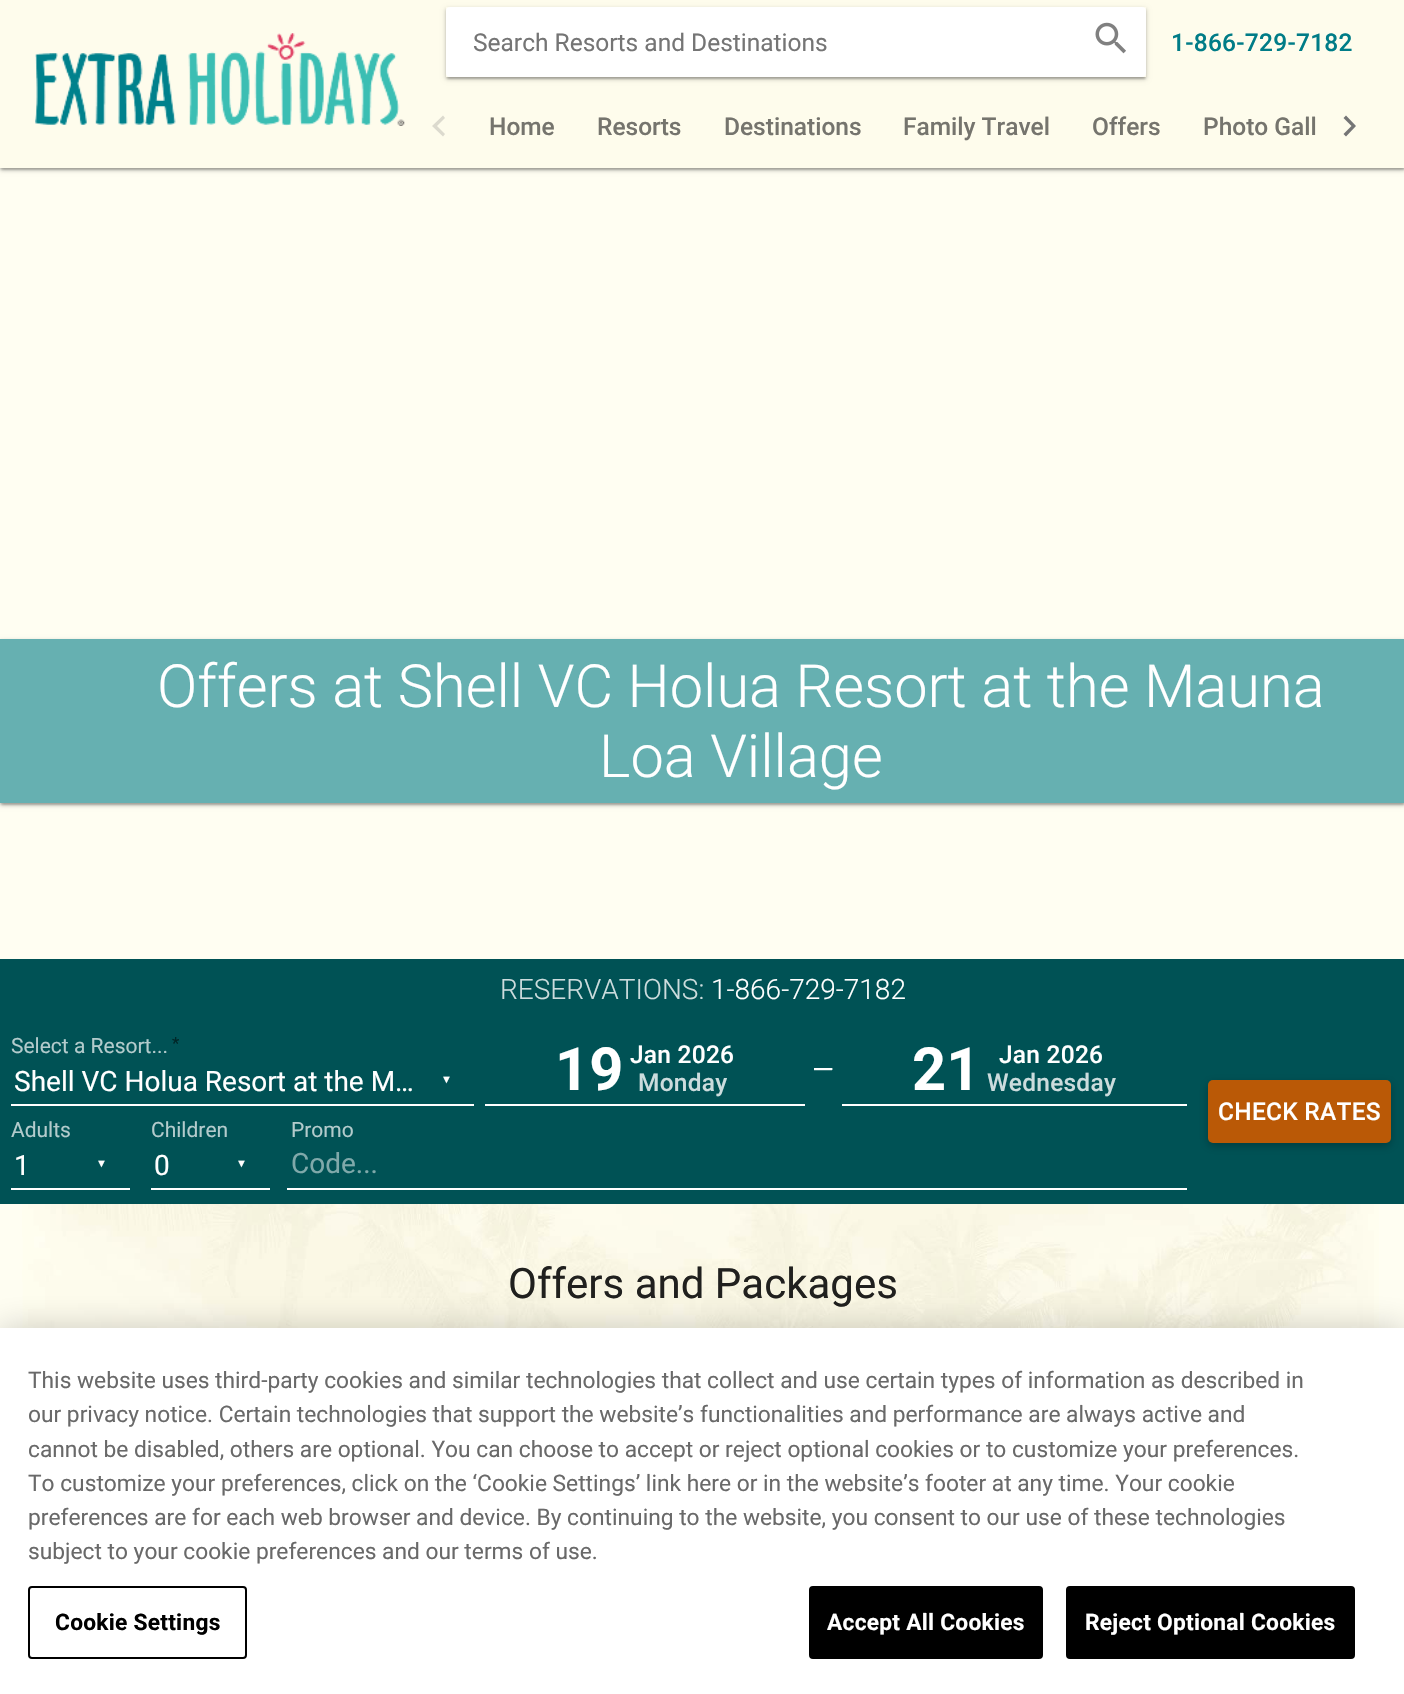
void draw(SkCanvas* canvas) {
    SkPaint paint;
    paint.setAntiAlias(true);
    auto face = [&](const char* family, int weight, float size, bool italic = false) {
        SkFontStyle style(weight, SkFontStyle::kNormal_Width,
            italic ? SkFontStyle::kItalic_Slant : SkFontStyle::kUpright_Slant);
        SkFont result(fontMgr->matchFamilyStyle(family, style), size);
        result.setSubpixel(true);
        return result;
    };
    auto write = [&](const char* s, float x, float y, const SkFont& font, SkColor color) {
        SkPaint ink(SkColor4f::FromColor(color));
        ink.setAntiAlias(true);
        canvas->drawString(s, x, y, font, ink);
    };
    auto writeSpaced = [&](const char* s, float x, float y, const SkFont& font, const SkPaint& ink, float letter, float word) {
        std::vector<SkGlyphID> glyphs(font.countText(s, strlen(s), SkTextEncoding::kUTF8));
        std::vector<float> xs(glyphs.size());
        font.textToGlyphs(s, strlen(s), SkTextEncoding::kUTF8, glyphs);
        font.getXPos(glyphs, xs, x);
        float extra = 0;
        for (size_t i = 0; i < glyphs.size(); i++) {
            xs[i] += extra;
            extra += letter + word * (glyphs[i] == font.unicharToGlyph(' '));
        }
        canvas->drawTextBlob(SkTextBlob::MakeFromPosHGlyphs(glyphs, xs, y, font), 0, 0, ink);
    };
    auto block = [&](float x, float y, float w, float h, SkColor color) {
        SkPaint ink(SkColor4f::FromColor(color));
        ink.setAntiAlias(true);
        canvas->drawRect(SkRect::MakeXYWH(x, y, w, h), ink);
    };
    auto card = [&](float x, float y, float w, float h, float radius, SkColor color) {
        SkPaint ink(SkColor4f::FromColor(color));
        ink.setAntiAlias(true);
        canvas->drawRoundRect(SkRect::MakeXYWH(x, y, w, h), radius, radius, ink);
    };
    auto paste = [&](const char* path, float x, float y, float w, float h) {
        auto image = SkImages::DeferredFromEncodedData(SkData::MakeFromFileName(path));
        canvas->drawImageRect(image, SkRect::MakeXYWH(x, y, w, h), SkSamplingOptions());
    };
    canvas->clear(SkColorSetRGB(255, 254, 242));
    paint.setColor(SkColorSetARGB(31, 0, 0, 0));
    paint.setMaskFilter(SkMaskFilter::MakeBlur(kNormal_SkBlurStyle, 1));
    canvas->drawRect(SkRect::MakeXYWH(2, 5, 1402, 165), paint);
    paint.setMaskFilter(nullptr);
    paint.setColor(SkColorSetARGB(36, 0, 0, 0));
    paint.setMaskFilter(SkMaskFilter::MakeBlur(kNormal_SkBlurStyle, 1));
    canvas->drawRect(SkRect::MakeXYWH(0, 2, 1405, 168), paint);
    paint.setMaskFilter(nullptr);
    paint.setColor(SkColorSetARGB(51, 0, 0, 0));
    paint.setMaskFilter(SkMaskFilter::MakeBlur(kNormal_SkBlurStyle, 2.5f));
    canvas->drawRect(SkRect::MakeXYWH(0, 2, 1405, 168), paint);
    paint.setMaskFilter(nullptr);
    block(0, 0, 1404, 168, SkColorSetRGB(254, 252, 236));
    paste("pic1.png", 35, 33, 370, 93);
    card(446, 7, 700, 70, 4, SK_ColorWHITE);
    canvas->save();
    canvas->clipRect(SkRect::MakeXYWH(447, 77, 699, 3));
    paint.setColor(SkColorSetARGB(31, 0, 0, 0));
    paint.setMaskFilter(SkMaskFilter::MakeBlur(kNormal_SkBlurStyle, 1));
    canvas->drawRect(SkRect::MakeXYWH(448, 12, 697, 67), paint);
    paint.setMaskFilter(nullptr);
    canvas->restore();
    canvas->save();
    canvas->clipPath(SkPathBuilder(SkPathFillType::kEvenOdd).moveTo(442, 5).lineTo(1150, 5).lineTo(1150, 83).lineTo(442, 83).close().moveTo(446, 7).lineTo(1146, 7).lineTo(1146, 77).lineTo(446, 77).close().detach(), true);
    paint.setColor(SkColorSetARGB(36, 0, 0, 0));
    paint.setMaskFilter(SkMaskFilter::MakeBlur(kNormal_SkBlurStyle, 1));
    canvas->drawRect(SkRect::MakeXYWH(446, 9, 700, 70), paint);
    paint.setMaskFilter(nullptr);
    canvas->restore();
    canvas->save();
    canvas->clipPath(SkPathBuilder(SkPathFillType::kEvenOdd).moveTo(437, 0).lineTo(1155, 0).lineTo(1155, 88).lineTo(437, 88).close().moveTo(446, 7).lineTo(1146, 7).lineTo(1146, 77).lineTo(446, 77).close().detach(), true);
    paint.setColor(SkColorSetARGB(51, 0, 0, 0));
    paint.setMaskFilter(SkMaskFilter::MakeBlur(kNormal_SkBlurStyle, 2.5f));
    canvas->drawRect(SkRect::MakeXYWH(446, 9, 700, 70), paint);
    paint.setMaskFilter(nullptr);
    canvas->restore();
    auto kFont1 = face("Roboto", 400, 24.5f);
    write("Search Resorts and Destinations", 473, 51, kFont1, SkColorSetRGB(117, 117, 117));
    paste("pic2.png", 1095, 22, 31, 32);
    auto kFont2 = face("Roboto", 500, 24.5f);
    paint.setColor(SkColorSetRGB(0, 124, 135));
    writeSpaced("1-866-729-7182", 1171, 51, kFont2, paint, 0.25f, 0);
    paint.setColor(SkColorSetRGB(220, 218, 206));
    canvas->drawPath(SkPathBuilder().moveTo(445, 118).lineTo(443, 115.5f).lineTo(432, 126).lineTo(443, 136.5f).lineTo(445, 134).lineTo(437, 126).close().detach(), paint);
    write("Home", 489, 135, kFont2, SkColorSetRGB(117, 116, 109));
    write("Resorts", 597, 135, kFont2, SkColorSetRGB(117, 116, 109));
    write("Destinations", 724, 135, kFont2, SkColorSetRGB(117, 116, 109));
    write("Family Travel", 903, 135, kFont2, SkColorSetRGB(117, 116, 109));
    write("Offers", 1092, 135, kFont2, SkColorSetRGB(117, 116, 109));
    write("Photo Gall", 1203, 135, kFont2, SkColorSetRGB(117, 116, 109));
    paint.setColor(SK_ColorWHITE);
    canvas->drawPath(SkPathBuilder().moveTo(1346, 115.5f).lineTo(1343.5f, 118).lineTo(1351.5f, 126).lineTo(1343.5f, 134).lineTo(1346, 136.5f).lineTo(1356, 126).close().detach(), paint);
    paint.setColor(SkColorSetARGB(138, 0, 0, 0));
    canvas->drawPath(SkPathBuilder().moveTo(1343.5f, 134).lineTo(1346, 136.5f).lineTo(1356, 126).lineTo(1346, 115.5f).lineTo(1343.5f, 118).lineTo(1351.5f, 126).close().detach(), paint);
    paste("pic3.png", 22, 1204, 1357, 124);
    paint.setColor(SkColorSetARGB(31, 0, 0, 0));
    paint.setMaskFilter(SkMaskFilter::MakeBlur(kNormal_SkBlurStyle, 1));
    canvas->drawRect(SkRect::MakeXYWH(2, 644, 1402, 161), paint);
    paint.setMaskFilter(nullptr);
    paint.setColor(SkColorSetARGB(36, 0, 0, 0));
    paint.setMaskFilter(SkMaskFilter::MakeBlur(kNormal_SkBlurStyle, 1));
    canvas->drawRect(SkRect::MakeXYWH(0, 641, 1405, 164), paint);
    paint.setMaskFilter(nullptr);
    paint.setColor(SkColorSetARGB(51, 0, 0, 0));
    paint.setMaskFilter(SkMaskFilter::MakeBlur(kNormal_SkBlurStyle, 2.5f));
    canvas->drawRect(SkRect::MakeXYWH(0, 641, 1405, 164), paint);
    paint.setMaskFilter(nullptr);
    block(0, 639, 1404, 164, SkColorSetRGB(102, 176, 177));
    auto kFont3 = face("Roboto", 300, 59.5f);
    write("Offers at Shell VC Holua Resort at the Mauna", 157, 707, kFont3, SK_ColorWHITE);
    write("Loa Village", 599, 777, kFont3, SK_ColorWHITE);
    block(0, 959, 1404, 245, SkColorSetRGB(0, 82, 85));
    auto kFont4 = face("Roboto", 300, 28);
    write("RESERVATIONS:", 500, 999, kFont4, SkColorSetRGB(204, 220, 221));
    write("1-866-729-7182", 711, 999, kFont4, SK_ColorWHITE);
    auto kFont5 = face("Roboto", 400, 21);
    write("Select a Resort...", 11, 1053, kFont5, SkColorSetRGB(179, 203, 204));
    auto kFont6 = face("Roboto", 400, 17);
    write("*", 172, 1049, kFont6, SkColorSetRGB(0, 38, 39));
    block(11, 1104, 463, 2, SK_ColorWHITE);
    auto kFont7 = face("Roboto", 400, 28);
    write("Shell VC Holua Resort at the M…", 14, 1091, kFont7, SK_ColorWHITE);
    auto kFont8 = face("Liberation Sans", 400, 11);
    paint.setColor(SK_ColorWHITE);
    writeSpaced("▼", 441, 1083, kFont8, paint, 11, 0);
    block(485, 1104, 320, 2, SK_ColorWHITE);
    auto kFont9 = face("Roboto", 700, 59.5f);
    write("19", 555, 1090, kFont9, SK_ColorWHITE);
    writeSpaced("Jan 2026", 630, 1063, kFont2, paint, 0.25f, 0);
    paint.setColor(SkColorSetRGB(204, 220, 221));
    writeSpaced("Monday", 638, 1091, kFont2, paint, 0.25f, 0);
    write("—", 812, 1079, kFont7, SK_ColorWHITE);
    block(842, 1104, 345, 2, SK_ColorWHITE);
    write("21", 912, 1090, kFont9, SK_ColorWHITE);
    paint.setColor(SK_ColorWHITE);
    writeSpaced("Jan 2026", 999, 1063, kFont2, paint, 0.25f, 0);
    paint.setColor(SkColorSetRGB(204, 220, 221));
    writeSpaced("Wednesday", 987, 1091, kFont2, paint, 0.25f, 0);
    write("Adults", 11, 1137, kFont5, SkColorSetRGB(179, 203, 204));
    block(11, 1188, 119, 2, SK_ColorWHITE);
    write("1", 14, 1175, kFont7, SK_ColorWHITE);
    paint.setColor(SK_ColorWHITE);
    writeSpaced("▼", 96, 1167, kFont8, paint, 11, 0);
    write("Children", 151, 1137, kFont5, SkColorSetRGB(179, 203, 204));
    block(151, 1188, 119, 2, SK_ColorWHITE);
    write("0", 154, 1175, kFont7, SK_ColorWHITE);
    writeSpaced("▼", 236, 1167, kFont8, paint, 11, 0);
    write("Promo", 291, 1137, kFont5, SkColorSetRGB(179, 203, 204));
    block(287, 1188, 900, 2, SK_ColorWHITE);
    write("Code...", 291, 1173, kFont7, SkColorSetRGB(128, 169, 170));
    paint.setColor(SkColorSetARGB(66, 0, 0, 0));
    paint.setMaskFilter(SkMaskFilter::MakeBlur(kNormal_SkBlurStyle, 4.5f));
    canvas->drawRoundRect(SkRect::MakeXYWH(1208, 1083, 183, 63), 5, 5, paint);
    paint.setMaskFilter(nullptr);
    card(1208, 1080, 183, 63, 5, SkColorSetRGB(186, 89, 6));
    paint.setColor(SK_ColorWHITE);
    writeSpaced("CHECK RATES", 1218, 1120, kFont2, paint, 0.25f, 0);
    auto kFont10 = face("Roboto", 400, 42);
    write("Offers and Packages", 508, 1298, kFont10, SkColorSetRGB(32, 32, 30));
    paint.setColor(SkColorSetARGB(51, 0, 0, 0));
    paint.setMaskFilter(SkMaskFilter::MakeBlur(kNormal_SkBlurStyle, 16));
    canvas->drawRect(SkRect::MakeXYWH(0, 1328, 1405, 366), paint);
    paint.setMaskFilter(nullptr);
    block(0, 1328, 1404, 366, SK_ColorWHITE);
    auto kFont11 = face("Roboto", 400, 22.75f);
    write("This website uses third-party cookies and similar technologies that collect and use certain types of information as described in", 28, 1388, kFont11, SkColorSetRGB(105, 105, 105));
    write("our privacy notice. Certain technologies that support the website’s functionalities and performance are always active and", 28, 1422, kFont11, SkColorSetRGB(105, 105, 105));
    write("cannot be disabled, others are optional. You can choose to accept or reject optional cookies or to customize your preferences.", 28, 1457, kFont11, SkColorSetRGB(105, 105, 105));
    write("To customize your preferences, click on the ‘Cookie Settings’ link here or in the website’s footer at any time. Your cookie", 28, 1491, kFont11, SkColorSetRGB(105, 105, 105));
    write("preferences are for each web browser and device. By continuing to the website, you consent to our use of these technologies", 28, 1525, kFont11, SkColorSetRGB(105, 105, 105));
    write("subject to your cookie preferences and our terms of use.", 28, 1559, kFont11, SkColorSetRGB(105, 105, 105));
    paint.setStyle(SkPaint::kStroke_Style);
    paint.setStrokeWidth(2);
    paint.setColor(SK_ColorBLACK);
    canvas->drawRoundRect(SkRect::MakeXYWH(29, 1587, 217, 71), 3, 3, paint);
    auto kFont12 = face("Roboto", 700, 22.75f);
    paint.setStyle(SkPaint::kFill_Style);
    writeSpaced("Cookie Settings", 55, 1630, kFont12, paint, 0.25f, 0);
    canvas->drawRoundRect(SkRect::MakeXYWH(810, 1587, 232, 71), 3, 3, paint);
    paint.setStyle(SkPaint::kStroke_Style);
    canvas->drawRoundRect(SkRect::MakeXYWH(810, 1587, 232, 71), 3, 3, paint);
    paint.setStyle(SkPaint::kFill_Style);
    paint.setColor(SK_ColorWHITE);
    writeSpaced("Accept All Cookies", 827, 1630, kFont12, paint, 0.25f, 0);
    paint.setColor(SK_ColorBLACK);
    canvas->drawRoundRect(SkRect::MakeXYWH(1067, 1587, 287, 71), 3, 3, paint);
    paint.setStyle(SkPaint::kStroke_Style);
    canvas->drawRoundRect(SkRect::MakeXYWH(1067, 1587, 287, 71), 3, 3, paint);
    paint.setStyle(SkPaint::kFill_Style);
    paint.setColor(SK_ColorWHITE);
    writeSpaced("Reject Optional Cookies", 1085, 1630, kFont12, paint, 0.25f, 0);
}
